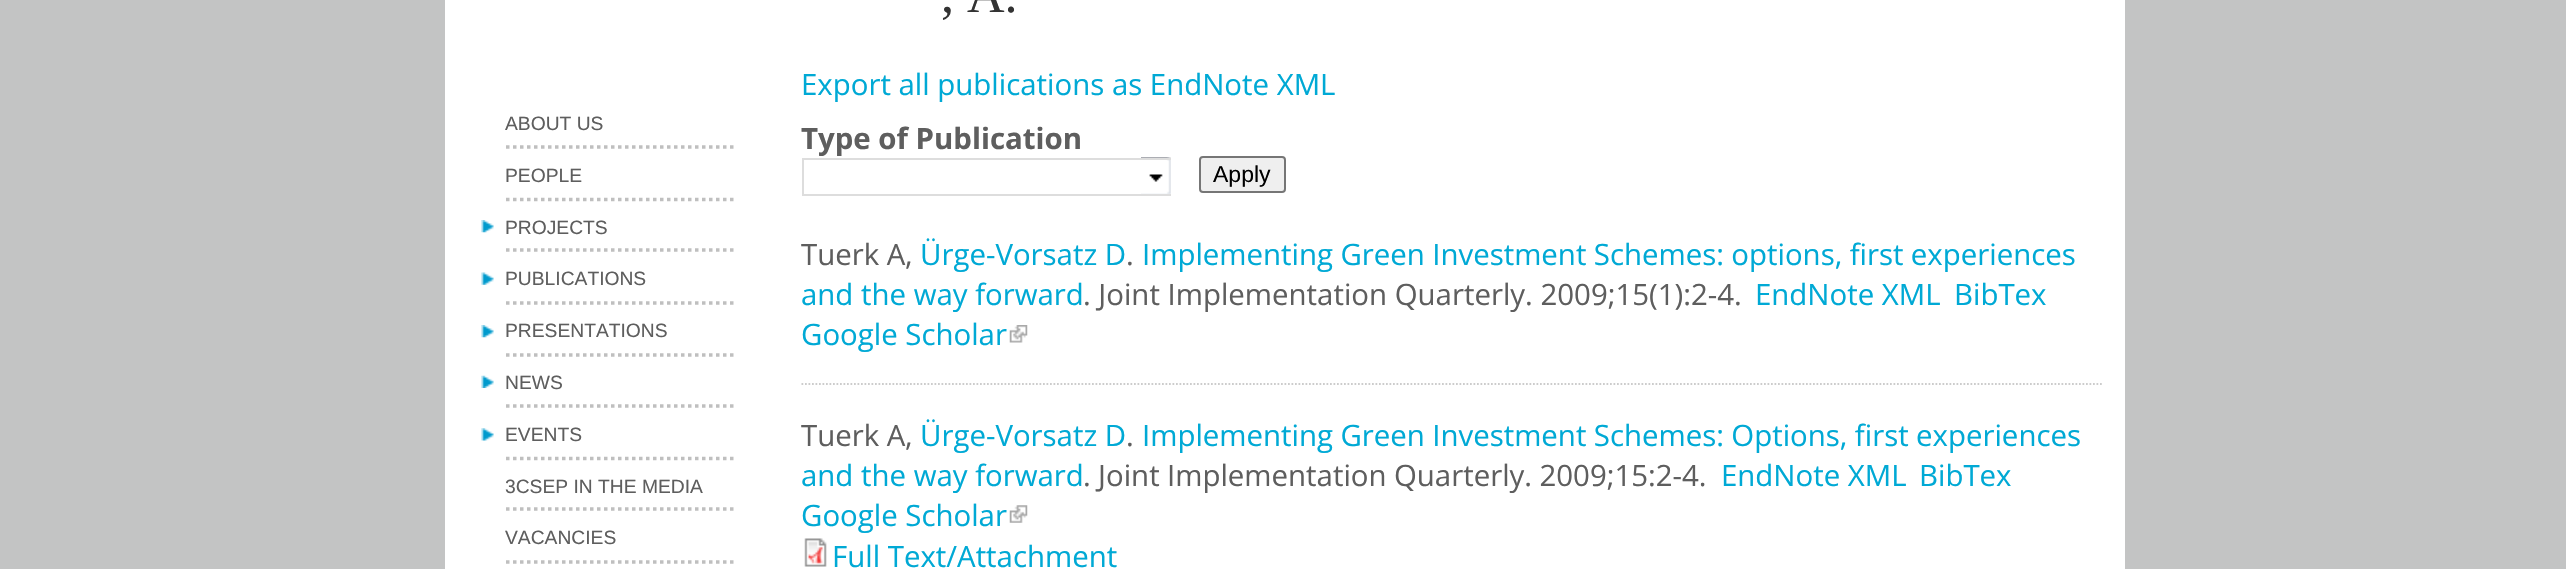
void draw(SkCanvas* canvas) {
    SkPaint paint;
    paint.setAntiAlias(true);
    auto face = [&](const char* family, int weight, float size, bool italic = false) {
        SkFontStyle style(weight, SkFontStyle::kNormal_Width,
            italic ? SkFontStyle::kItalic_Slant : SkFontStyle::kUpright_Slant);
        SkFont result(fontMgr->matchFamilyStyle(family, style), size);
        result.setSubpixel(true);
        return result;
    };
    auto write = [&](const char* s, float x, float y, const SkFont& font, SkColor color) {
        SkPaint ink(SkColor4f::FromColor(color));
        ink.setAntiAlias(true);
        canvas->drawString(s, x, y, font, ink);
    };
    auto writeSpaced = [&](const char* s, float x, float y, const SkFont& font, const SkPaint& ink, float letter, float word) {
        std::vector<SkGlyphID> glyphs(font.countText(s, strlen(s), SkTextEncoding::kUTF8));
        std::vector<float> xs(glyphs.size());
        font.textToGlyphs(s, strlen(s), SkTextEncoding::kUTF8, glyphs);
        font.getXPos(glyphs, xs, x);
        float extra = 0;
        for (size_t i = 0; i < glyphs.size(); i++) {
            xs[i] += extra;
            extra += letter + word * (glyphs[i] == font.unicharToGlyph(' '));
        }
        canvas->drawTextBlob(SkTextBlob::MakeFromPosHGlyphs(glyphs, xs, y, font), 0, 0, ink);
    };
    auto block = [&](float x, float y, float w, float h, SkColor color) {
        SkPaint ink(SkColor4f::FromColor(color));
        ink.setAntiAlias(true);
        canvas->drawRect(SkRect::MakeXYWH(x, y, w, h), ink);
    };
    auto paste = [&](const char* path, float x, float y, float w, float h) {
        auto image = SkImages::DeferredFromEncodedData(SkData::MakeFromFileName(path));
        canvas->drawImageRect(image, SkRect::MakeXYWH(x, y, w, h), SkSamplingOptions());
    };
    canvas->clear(SkColorSetRGB(195, 196, 196));
    block(445, 0, 1680, 569, SK_ColorWHITE);
    auto kFont1 = face("Liberation Serif", 400, 52);
    write(", A.", 941, 12, kFont1, SkColorSetRGB(51, 51, 51));
    paint.setStyle(SkPaint::kStroke_Style);
    paint.setStrokeWidth(3.5f);
    paint.setColor(SkColorSetRGB(191, 191, 191));
    paint.setPathEffect(SkDashPathEffect::Make({{3.5f, 3.5f}}, 0));
    canvas->drawPath(SkPathBuilder().moveTo(506, 147).lineTo(737, 147).detach(), paint);
    paint.setPathEffect(nullptr);
    auto kFont2 = face("Liberation Sans", 400, 19.25f);
    write("ABOUT US", 505, 130, kFont2, SkColorSetRGB(94, 94, 94));
    paint.setPathEffect(SkDashPathEffect::Make({{3.5f, 3.5f}}, 0));
    canvas->drawPath(SkPathBuilder().moveTo(506, 199.5f).lineTo(737, 199.5f).detach(), paint);
    paint.setPathEffect(nullptr);
    write("PEOPLE", 505, 182, kFont2, SkColorSetRGB(94, 94, 94));
    paste("pic1.png", 481, 220, 13, 13);
    paint.setPathEffect(SkDashPathEffect::Make({{3.5f, 3.5f}}, 0));
    canvas->drawPath(SkPathBuilder().moveTo(506, 250).lineTo(737, 250).detach(), paint);
    paint.setPathEffect(nullptr);
    write("PROJECTS", 505, 234, kFont2, SkColorSetRGB(94, 94, 94));
    paste("pic2.png", 481, 272, 13, 13);
    paint.setPathEffect(SkDashPathEffect::Make({{3.5f, 3.5f}}, 0));
    canvas->drawPath(SkPathBuilder().moveTo(506, 303).lineTo(737, 303).detach(), paint);
    paint.setPathEffect(nullptr);
    write("PUBLICATIONS", 505, 285, kFont2, SkColorSetRGB(94, 94, 94));
    paste("pic1.png", 481, 325, 13, 13);
    paint.setPathEffect(SkDashPathEffect::Make({{3.5f, 3.5f}}, 0));
    canvas->drawPath(SkPathBuilder().moveTo(506, 355).lineTo(737, 355).detach(), paint);
    paint.setPathEffect(nullptr);
    write("PRESENTATIONS", 505, 337, kFont2, SkColorSetRGB(94, 94, 94));
    paste("pic3.png", 481, 375, 13, 13);
    paint.setPathEffect(SkDashPathEffect::Make({{3.5f, 3.5f}}, 0));
    canvas->drawPath(SkPathBuilder().moveTo(506, 406).lineTo(737, 406).detach(), paint);
    paint.setPathEffect(nullptr);
    write("NEWS", 505, 389, kFont2, SkColorSetRGB(94, 94, 94));
    paste("pic4.png", 481, 428, 13, 13);
    paint.setPathEffect(SkDashPathEffect::Make({{3.5f, 3.5f}}, 0));
    canvas->drawPath(SkPathBuilder().moveTo(506, 458.5f).lineTo(737, 458.5f).detach(), paint);
    paint.setPathEffect(nullptr);
    write("EVENTS", 505, 441, kFont2, SkColorSetRGB(94, 94, 94));
    paint.setPathEffect(SkDashPathEffect::Make({{3.5f, 3.5f}}, 0));
    canvas->drawPath(SkPathBuilder().moveTo(506, 509).lineTo(737, 509).detach(), paint);
    paint.setPathEffect(nullptr);
    write("3CSEP IN THE MEDIA", 505, 493, kFont2, SkColorSetRGB(94, 94, 94));
    paint.setPathEffect(SkDashPathEffect::Make({{3.5f, 3.5f}}, 0));
    canvas->drawPath(SkPathBuilder().moveTo(506, 562).lineTo(737, 562).detach(), paint);
    paint.setPathEffect(nullptr);
    write("VACANCIES", 505, 544, kFont2, SkColorSetRGB(94, 94, 94));
    auto kFont3 = face("Open Sans", 400, 29.4f);
    write("Export all publications as EndNote XML", 801, 95, kFont3, SkColorSetRGB(0, 169, 213));
    auto kFont4 = face("Open Sans", 700, 29.4f);
    write("Type of Publication", 801, 149, kFont4, SkColorSetRGB(94, 94, 94));
    paste("pic5.png", 1141, 157, 30, 37);
    block(802, 158, 369, 2, SkColorSetRGB(221, 221, 221));
    block(802, 194, 369, 2, SkColorSetRGB(221, 221, 221));
    block(802, 158, 2, 38, SkColorSetRGB(221, 221, 221));
    paint.setStyle(SkPaint::kFill_Style);
    paint.setColor(SkColorSetRGB(239, 239, 239));
    canvas->drawRoundRect(SkRect::MakeXYWH(1200, 157, 85, 35), 3, 3, paint);
    paint.setStyle(SkPaint::kStroke_Style);
    paint.setStrokeWidth(2);
    paint.setColor(SkColorSetRGB(118, 118, 118));
    canvas->drawRoundRect(SkRect::MakeXYWH(1200, 157, 85, 35), 3, 3, paint);
    auto kFont5 = face("Liberation Sans", 400, 23);
    write("Apply", 1213, 182, kFont5, SK_ColorBLACK);
    paint.setStrokeWidth(1.8f);
    paint.setColor(SkColorSetRGB(204, 204, 204));
    paint.setPathEffect(SkDashPathEffect::Make({{1.75f, 1.75f}}, 0));
    canvas->drawPath(SkPathBuilder().moveTo(801.5f, 384).lineTo(2103.5f, 384).detach(), paint);
    paint.setPathEffect(nullptr);
    write("Tuerk A", 801, 265, kFont3, SkColorSetRGB(94, 94, 94));
    write(",", 905, 265, kFont3, SkColorSetRGB(94, 94, 94));
    write("Ürge-Vorsatz D", 920, 265, kFont3, SkColorSetRGB(0, 169, 213));
    write(".", 1126, 265, kFont3, SkColorSetRGB(94, 94, 94));
    paint.setStyle(SkPaint::kFill_Style);
    paint.setColor(SkColorSetRGB(0, 169, 213));
    writeSpaced("Implementing Green Investment Schemes: options, first experiences", 1142, 265, kFont3, paint, 0, -0.25f);
    write("and the way forward", 801, 305, kFont3, SkColorSetRGB(0, 169, 213));
    write(". Joint Implementation Quarterly. 2009;15(1):2-4.", 1083, 305, kFont3, SkColorSetRGB(94, 94, 94));
    write("EndNote XML", 1755, 305, kFont3, SkColorSetRGB(0, 169, 213));
    write("BibTex", 1954, 305, kFont3, SkColorSetRGB(0, 169, 213));
    write("Google Scholar", 801, 345, kFont3, SkColorSetRGB(0, 169, 213));
    paste("pic6.png", 1009, 325, 19, 18);
    write("Tuerk A", 801, 446, kFont3, SkColorSetRGB(94, 94, 94));
    write(",", 905, 446, kFont3, SkColorSetRGB(94, 94, 94));
    write("Ürge-Vorsatz D", 920, 446, kFont3, SkColorSetRGB(0, 169, 213));
    write(".", 1126, 446, kFont3, SkColorSetRGB(94, 94, 94));
    writeSpaced("Implementing Green Investment Schemes: Options, first experiences", 1142, 446, kFont3, paint, 0, -0.25f);
    write("and the way forward", 801, 486, kFont3, SkColorSetRGB(0, 169, 213));
    paint.setColor(SkColorSetRGB(94, 94, 94));
    writeSpaced(". Joint Implementation Quarterly. 2009;15:2-4.", 1083, 486, kFont3, paint, 0, -0.25f);
    write("EndNote XML", 1721, 486, kFont3, SkColorSetRGB(0, 169, 213));
    write("BibTex", 1919, 486, kFont3, SkColorSetRGB(0, 169, 213));
    write("Google Scholar", 801, 526, kFont3, SkColorSetRGB(0, 169, 213));
    paste("pic7.png", 1009, 505, 19, 18);
    paste("pic8.png", 804, 538, 23, 29);
    write("Full Text/Attachment", 832, 567, kFont3, SkColorSetRGB(0, 169, 213));
}
